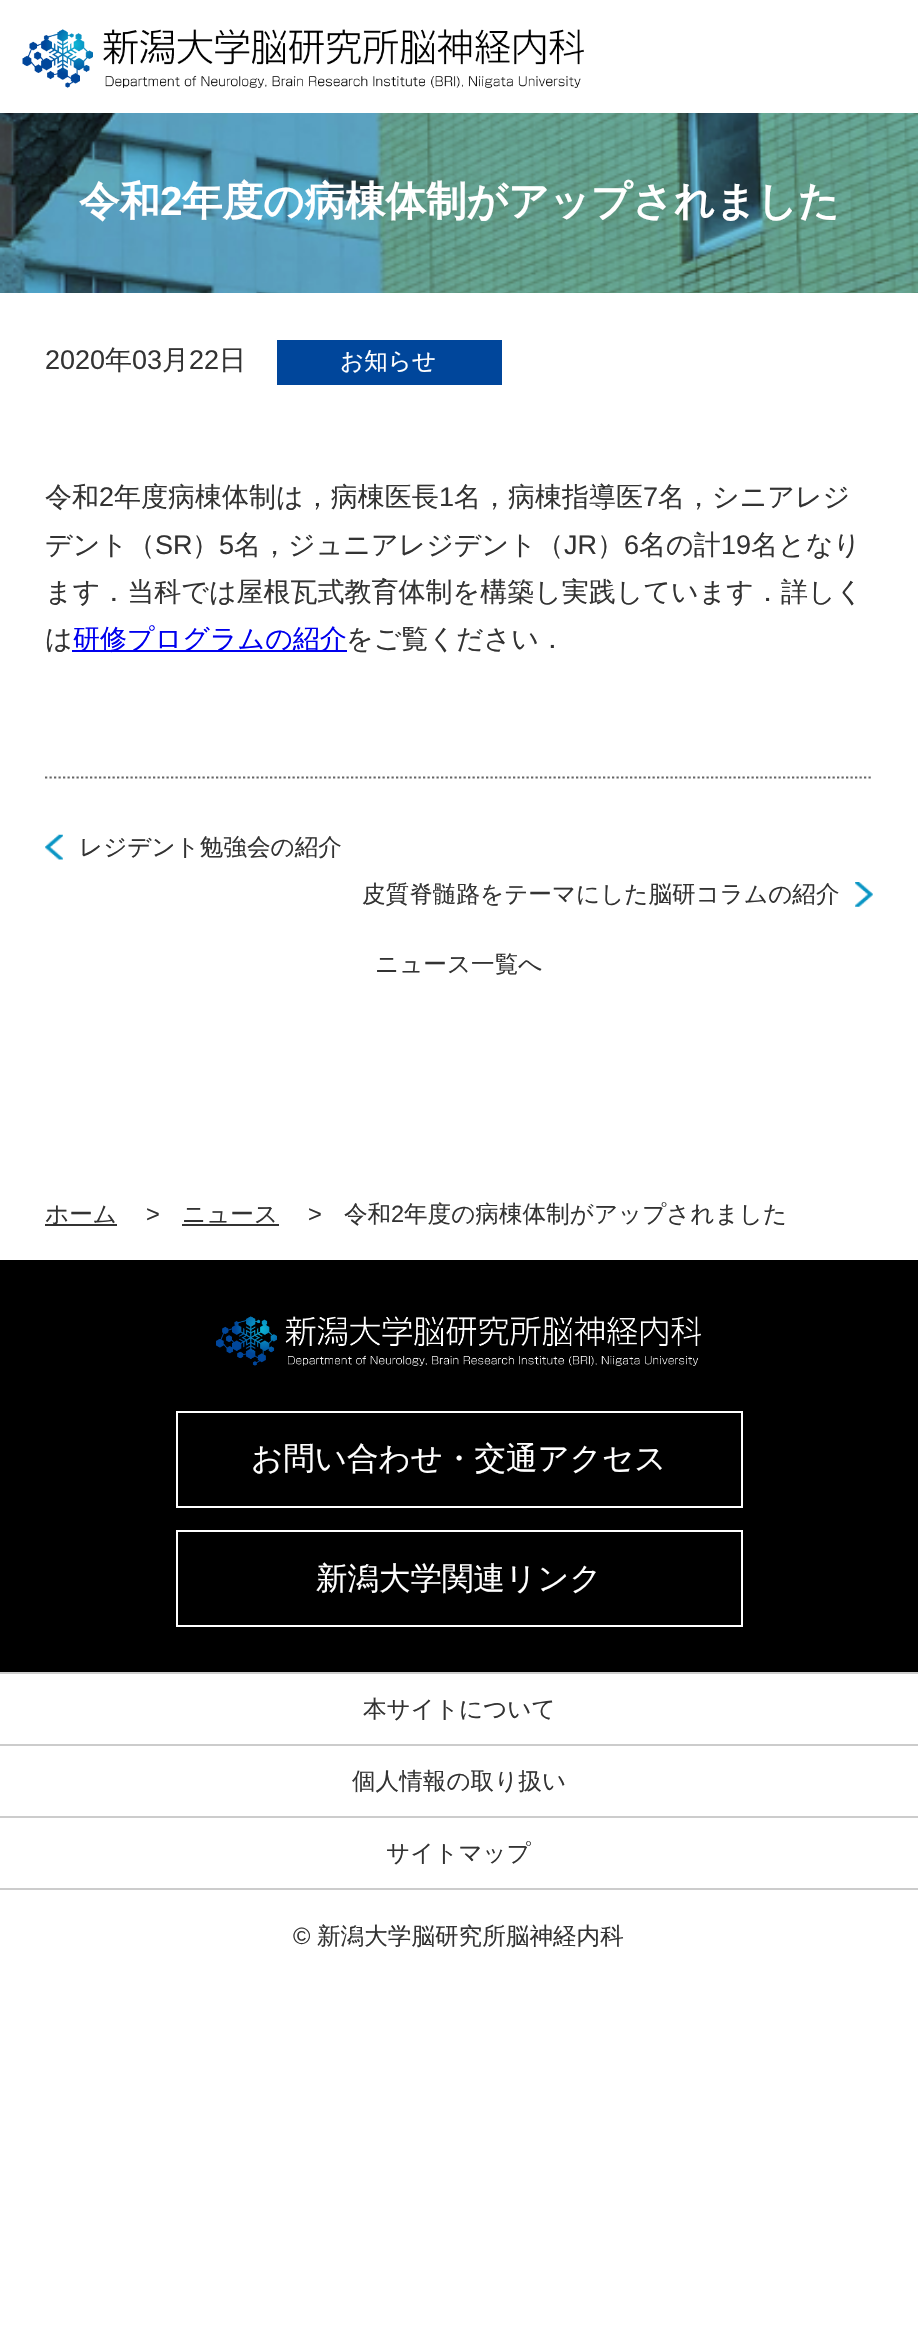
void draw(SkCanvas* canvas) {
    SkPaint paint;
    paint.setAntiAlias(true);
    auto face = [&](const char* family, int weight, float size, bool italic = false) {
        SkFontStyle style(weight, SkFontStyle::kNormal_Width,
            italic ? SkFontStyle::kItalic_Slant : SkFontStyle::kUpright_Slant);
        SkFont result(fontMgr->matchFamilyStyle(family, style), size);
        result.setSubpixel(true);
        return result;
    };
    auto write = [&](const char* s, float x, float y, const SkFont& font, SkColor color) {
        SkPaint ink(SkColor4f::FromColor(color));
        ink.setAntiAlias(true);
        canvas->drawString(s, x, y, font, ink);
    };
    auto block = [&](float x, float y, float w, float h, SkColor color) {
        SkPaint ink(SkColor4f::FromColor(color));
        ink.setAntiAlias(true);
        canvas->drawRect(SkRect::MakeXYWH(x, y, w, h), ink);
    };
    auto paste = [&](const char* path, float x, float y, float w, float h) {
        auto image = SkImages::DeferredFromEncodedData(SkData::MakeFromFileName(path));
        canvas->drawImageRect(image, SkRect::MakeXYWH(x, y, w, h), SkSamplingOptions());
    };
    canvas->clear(SK_ColorWHITE);
    paste("pic1.png", 22, 29, 562, 59);
    paste("pic2.png", 0, 113, 918, 180);
    auto kFont1 = face("WenQuanYi Zen Hei", 700, 40.5f);
    write("令和", 79, 215, kFont1, SK_ColorWHITE);
    auto kFont2 = face("Liberation Sans", 700, 40.5f);
    write("2", 160, 215, kFont2, SK_ColorWHITE);
    write("年度の病棟体制がアップされました", 182, 215, kFont1, SK_ColorWHITE);
    auto kFont3 = face("Liberation Sans", 400, 27);
    write("2020", 45, 369, kFont3, SkColorSetRGB(51, 51, 51));
    auto kFont4 = face("WenQuanYi Zen Hei", 500, 27);
    write("年", 105, 369, kFont4, SkColorSetRGB(51, 51, 51));
    write("03", 132, 369, kFont3, SkColorSetRGB(51, 51, 51));
    write("月", 162, 369, kFont4, SkColorSetRGB(51, 51, 51));
    write("22", 189, 369, kFont3, SkColorSetRGB(51, 51, 51));
    write("日", 219, 369, kFont4, SkColorSetRGB(51, 51, 51));
    block(277, 340, 225, 45, SkColorSetRGB(0, 70, 155));
    auto kFont5 = face("WenQuanYi Zen Hei", 500, 23.6f);
    write("お知らせ", 340, 369, kFont5, SK_ColorWHITE);
    write("令和", 45, 506, kFont4, SkColorSetRGB(51, 51, 51));
    write("2", 99, 506, kFont3, SkColorSetRGB(51, 51, 51));
    write("年度病棟体制は，病棟医長", 114, 506, kFont4, SkColorSetRGB(51, 51, 51));
    write("1", 439, 506, kFont3, SkColorSetRGB(51, 51, 51));
    write("名，病棟指導医", 454, 506, kFont4, SkColorSetRGB(51, 51, 51));
    write("7", 643, 506, kFont3, SkColorSetRGB(51, 51, 51));
    write("名，シニアレジ", 658, 506, kFont4, SkColorSetRGB(51, 51, 51));
    write("デント（", 45, 554, kFont4, SkColorSetRGB(51, 51, 51));
    write("SR", 155, 554, kFont3, SkColorSetRGB(51, 51, 51));
    write("）", 192, 554, kFont4, SkColorSetRGB(51, 51, 51));
    write("5", 219, 554, kFont3, SkColorSetRGB(51, 51, 51));
    write("名，ジュニアレジデント（", 234, 554, kFont4, SkColorSetRGB(51, 51, 51));
    write("JR", 564, 554, kFont3, SkColorSetRGB(51, 51, 51));
    write("）", 597, 554, kFont4, SkColorSetRGB(51, 51, 51));
    write("6", 624, 554, kFont3, SkColorSetRGB(51, 51, 51));
    write("名の計", 639, 554, kFont4, SkColorSetRGB(51, 51, 51));
    write("19", 721, 554, kFont3, SkColorSetRGB(51, 51, 51));
    write("名となり", 751, 554, kFont4, SkColorSetRGB(51, 51, 51));
    write("ます．当科では屋根瓦式教育体制を構築し実践しています．詳しく", 45, 601, kFont4, SkColorSetRGB(51, 51, 51));
    write("は", 45, 648, kFont4, SkColorSetRGB(51, 51, 51));
    block(72, 650, 275, 2, SkColorSetRGB(0, 0, 238));
    write("研修プログラムの紹介", 73, 648, kFont4, SkColorSetRGB(0, 0, 238));
    write("をご覧ください．", 346, 648, kFont4, SkColorSetRGB(51, 51, 51));
    paint.setStyle(SkPaint::kStroke_Style);
    paint.setStrokeWidth(2.2f);
    paint.setColor(SkColorSetRGB(102, 102, 102));
    paint.setPathEffect(SkDashPathEffect::Make({{2.25f, 2.25f}}, 0));
    canvas->drawPath(SkPathBuilder().moveTo(45, 777.5f).lineTo(873, 777.5f).detach(), paint);
    paint.setPathEffect(nullptr);
    paste("pic3.png", 45, 834, 18, 26);
    write("レジデント勉強会の紹介", 79, 855, kFont5, SkColorSetRGB(51, 51, 51));
    write("皮質脊髄路をテーマにした脳研コラムの紹介", 362, 902, kFont5, SkColorSetRGB(51, 51, 51));
    paste("pic4.png", 855, 882, 18, 25);
    write("ニュース一覧へ", 375, 972, kFont5, SkColorSetRGB(51, 51, 51));
    block(45, 1224, 72, 2, SkColorSetRGB(51, 51, 51));
    write("ホーム", 45, 1222, kFont5, SkColorSetRGB(51, 51, 51));
    auto kFont6 = face("Liberation Sans", 400, 23.6f);
    write(">", 146, 1222, kFont6, SkColorSetRGB(51, 51, 51));
    write("ニュース", 182, 1222, kFont5, SkColorSetRGB(51, 51, 51));
    block(182, 1224, 97, 2, SkColorSetRGB(51, 51, 51));
    write(">", 308, 1222, kFont6, SkColorSetRGB(51, 51, 51));
    write("令和", 344, 1222, kFont5, SkColorSetRGB(51, 51, 51));
    write("2", 391, 1222, kFont6, SkColorSetRGB(51, 51, 51));
    write("年度の病棟体制がアップされました", 404, 1222, kFont5, SkColorSetRGB(51, 51, 51));
    block(0, 1260, 918, 412, SK_ColorBLACK);
    paste("pic5.png", 216, 1316, 485, 50);
    paint.setStrokeWidth(2);
    paint.setColor(SK_ColorWHITE);
    canvas->drawRect(SkRect::MakeXYWH(177, 1412, 565, 95), paint);
    auto kFont7 = face("WenQuanYi Zen Hei", 500, 31.5f);
    write("お問い合わせ・交通アクセス", 251, 1469, kFont7, SK_ColorWHITE);
    canvas->drawRect(SkRect::MakeXYWH(177, 1531, 565, 95), paint);
    write("新潟大学関連リンク", 316, 1589, kFont7, SK_ColorWHITE);
    block(0, 1672, 918, 2, SkColorSetRGB(204, 204, 204));
    block(0, 1744, 918, 2, SkColorSetRGB(204, 204, 204));
    write("本サイトについて", 363, 1717, kFont5, SkColorSetRGB(51, 51, 51));
    block(0, 1816, 918, 2, SkColorSetRGB(204, 204, 204));
    write("個人情報の取り扱い", 352, 1789, kFont5, SkColorSetRGB(51, 51, 51));
    block(0, 1888, 918, 2, SkColorSetRGB(204, 204, 204));
    write("サイトマップ", 386, 1861, kFont5, SkColorSetRGB(51, 51, 51));
    write("©", 293, 1944, kFont6, SkColorSetRGB(51, 51, 51));
    write("新潟大学脳研究所脳神経内科", 317, 1944, kFont5, SkColorSetRGB(51, 51, 51));
}
